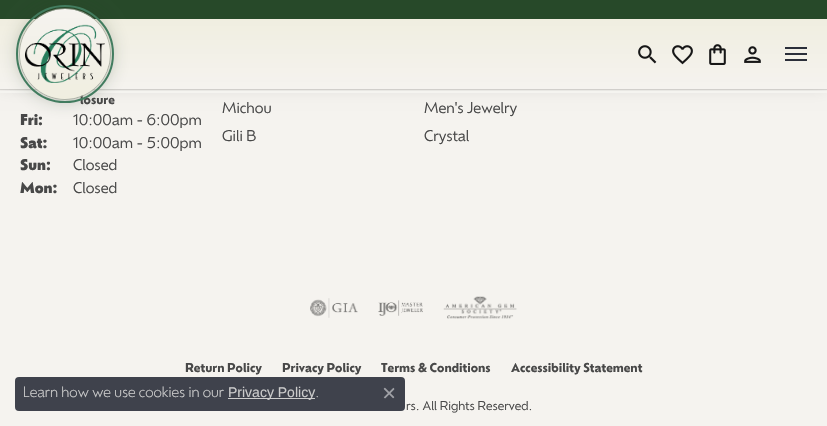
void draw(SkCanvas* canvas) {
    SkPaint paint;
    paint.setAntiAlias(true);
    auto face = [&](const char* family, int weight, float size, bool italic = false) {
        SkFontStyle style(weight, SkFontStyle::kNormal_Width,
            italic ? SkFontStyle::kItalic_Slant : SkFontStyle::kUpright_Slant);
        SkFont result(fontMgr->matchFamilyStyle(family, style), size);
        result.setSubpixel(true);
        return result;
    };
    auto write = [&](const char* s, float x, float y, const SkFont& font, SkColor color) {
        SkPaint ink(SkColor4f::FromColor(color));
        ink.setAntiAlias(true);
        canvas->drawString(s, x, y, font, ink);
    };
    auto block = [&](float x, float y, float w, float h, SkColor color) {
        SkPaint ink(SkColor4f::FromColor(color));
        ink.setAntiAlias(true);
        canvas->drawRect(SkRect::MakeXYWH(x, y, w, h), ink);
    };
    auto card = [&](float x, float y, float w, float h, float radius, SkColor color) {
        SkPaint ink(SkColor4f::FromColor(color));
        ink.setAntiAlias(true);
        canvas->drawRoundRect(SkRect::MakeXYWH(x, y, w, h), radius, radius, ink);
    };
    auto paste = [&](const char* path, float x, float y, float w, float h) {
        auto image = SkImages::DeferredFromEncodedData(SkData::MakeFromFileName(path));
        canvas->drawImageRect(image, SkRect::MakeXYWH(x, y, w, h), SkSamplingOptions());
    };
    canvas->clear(SkColorSetRGB(245, 243, 239));
    paint.setStyle(SkPaint::kStroke_Style);
    paint.setStrokeWidth(1);
    paint.setColor(SkColorSetARGB(26, 0, 0, 0));
    canvas->drawRect(SkRect::MakeXYWH(-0.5f, -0.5f, 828, 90), paint);
    paint.setStyle(SkPaint::kFill_Style);
    paint.setMaskFilter(SkMaskFilter::MakeBlur(kNormal_SkBlurStyle, 7.5f));
    canvas->drawRect(SkRect::MakeXYWH(0, 0, 827, 89), paint);
    paint.setMaskFilter(nullptr);
    {
        const SkColor colors[] = {SkColorSetRGB(240, 238, 224), SkColorSetRGB(245, 243, 239)};
        const float stops[] = {0, 1};
        const SkPoint ends[] = {{414, 19}, {414, 89}};
        paint.setShader(SkGradientShader::MakeLinear(ends, colors, stops, 2, SkTileMode::kClamp));
        paint.setAlpha(255);
    }
    canvas->drawRect(SkRect::MakeXYWH(0, 19, 827, 70), paint);
    block(0, 0, 827, 19, SkColorSetRGB(39, 73, 41));
    block(0, 91, 827, 2, SkColorSetRGB(245, 244, 240));
    auto kFont1 = face("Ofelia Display", 700, 12);
    write("losure", 80, 104, kFont1, SkColorSetRGB(72, 72, 72));
    paint.setStyle(SkPaint::kStroke_Style);
    paint.setShader(nullptr);
    paint.setColor(SkColorSetARGB(179, 176, 179, 166));
    canvas->drawCircle(65, 54, 45.5f, paint);
    paint.setStyle(SkPaint::kFill_Style);
    paint.setColor(SkColorSetARGB(89, 42, 64, 40));
    paint.setMaskFilter(SkMaskFilter::MakeBlur(kNormal_SkBlurStyle, 10));
    canvas->drawRoundRect(SkRect::MakeXYWH(20, 9, 90, 90), 45, 45, paint);
    paint.setMaskFilter(nullptr);
    {
        const SkColor colors[] = {SkColorSetRGB(245, 243, 239), SkColorSetRGB(240, 238, 224)};
        const float stops[] = {0, 1};
        const SkPoint ends[] = {{65, 9}, {65, 99}};
        paint.setShader(SkGradientShader::MakeLinear(ends, colors, stops, 2, SkTileMode::kClamp));
        paint.setAlpha(255);
    }
    canvas->drawCircle(65, 54, 45, paint);
    paint.setStyle(SkPaint::kStroke_Style);
    paint.setStrokeWidth(2);
    paint.setShader(nullptr);
    paint.setColor(SkColorSetRGB(66, 124, 95));
    canvas->drawCircle(65, 54, 48, paint);
    paste("pic1.png", 25, 24, 80, 59);
    paste("pic2.png", 638, 45, 19, 19);
    paste("pic3.png", 672, 45, 21, 20);
    paste("pic4.png", 709, 44, 17, 21);
    paste("pic5.png", 744, 46, 17, 17);
    block(785, 47, 22, 2, SkColorSetRGB(43, 47, 58));
    block(785, 53, 22, 2, SkColorSetRGB(43, 47, 58));
    block(785, 59, 22, 2, SkColorSetRGB(43, 47, 58));
    auto kFont2 = face("Ofelia Display", 800, 14.5f);
    write("Fri:", 20, 125, kFont2, SkColorSetRGB(72, 72, 72));
    auto kFont3 = face("Ofelia Display", 400, 14.5f);
    write("10:00am - 6:00pm", 73, 125, kFont3, SkColorSetRGB(72, 72, 72));
    write("Sat:", 20, 148, kFont2, SkColorSetRGB(72, 72, 72));
    write("10:00am - 5:00pm", 73, 148, kFont3, SkColorSetRGB(72, 72, 72));
    write("Sun:", 20, 170, kFont2, SkColorSetRGB(72, 72, 72));
    write("Closed", 73, 170, kFont3, SkColorSetRGB(72, 72, 72));
    write("Mon:", 20, 193, kFont2, SkColorSetRGB(72, 72, 72));
    write("Closed", 73, 193, kFont3, SkColorSetRGB(72, 72, 72));
    write("Michou", 222, 113, kFont3, SkColorSetRGB(72, 72, 72));
    write("Gili B", 222, 141, kFont3, SkColorSetRGB(72, 72, 72));
    write("Men's Jewelry", 424, 113, kFont3, SkColorSetRGB(72, 72, 72));
    write("Crystal", 424, 141, kFont3, SkColorSetRGB(72, 72, 72));
    paste("pic6.png", 310, 298, 48, 20);
    paste("pic7.png", 378, 300, 45, 16);
    paste("pic8.png", 443, 296, 74, 23);
    write("Return Policy", 185, 372, kFont1, SkColorSetRGB(72, 72, 72));
    write("Privacy Policy", 282, 372, kFont1, SkColorSetRGB(72, 72, 72));
    write("Terms & Conditions", 381, 372, kFont1, SkColorSetRGB(72, 72, 72));
    write("Accessibility Statement", 511, 372, kFont1, SkColorSetRGB(72, 72, 72));
    auto kFont4 = face("Ofelia Display", 400, 12);
    write("rs. All Rights Reserved.", 406, 410, kFont4, SkColorSetRGB(72, 72, 72));
    card(15, 377, 390, 34, 4, SkColorSetARGB(230, 43, 47, 58));
    auto kFont5 = face("Ofelia Display", 300, 14);
    write("Learn how we use cookies in our", 23, 397, kFont5, SkColorSetRGB(204, 204, 204));
    block(228, 398, 87, 1, SkColorSetRGB(204, 204, 204));
    auto kFont6 = face("Liberation Sans", 400, 14);
    write("Privacy Policy", 228, 397, kFont6, SkColorSetRGB(204, 204, 204));
    write(".", 315, 397, kFont5, SkColorSetRGB(204, 204, 204));
    paste("pic9.png", 383, 387, 12, 12);
}
